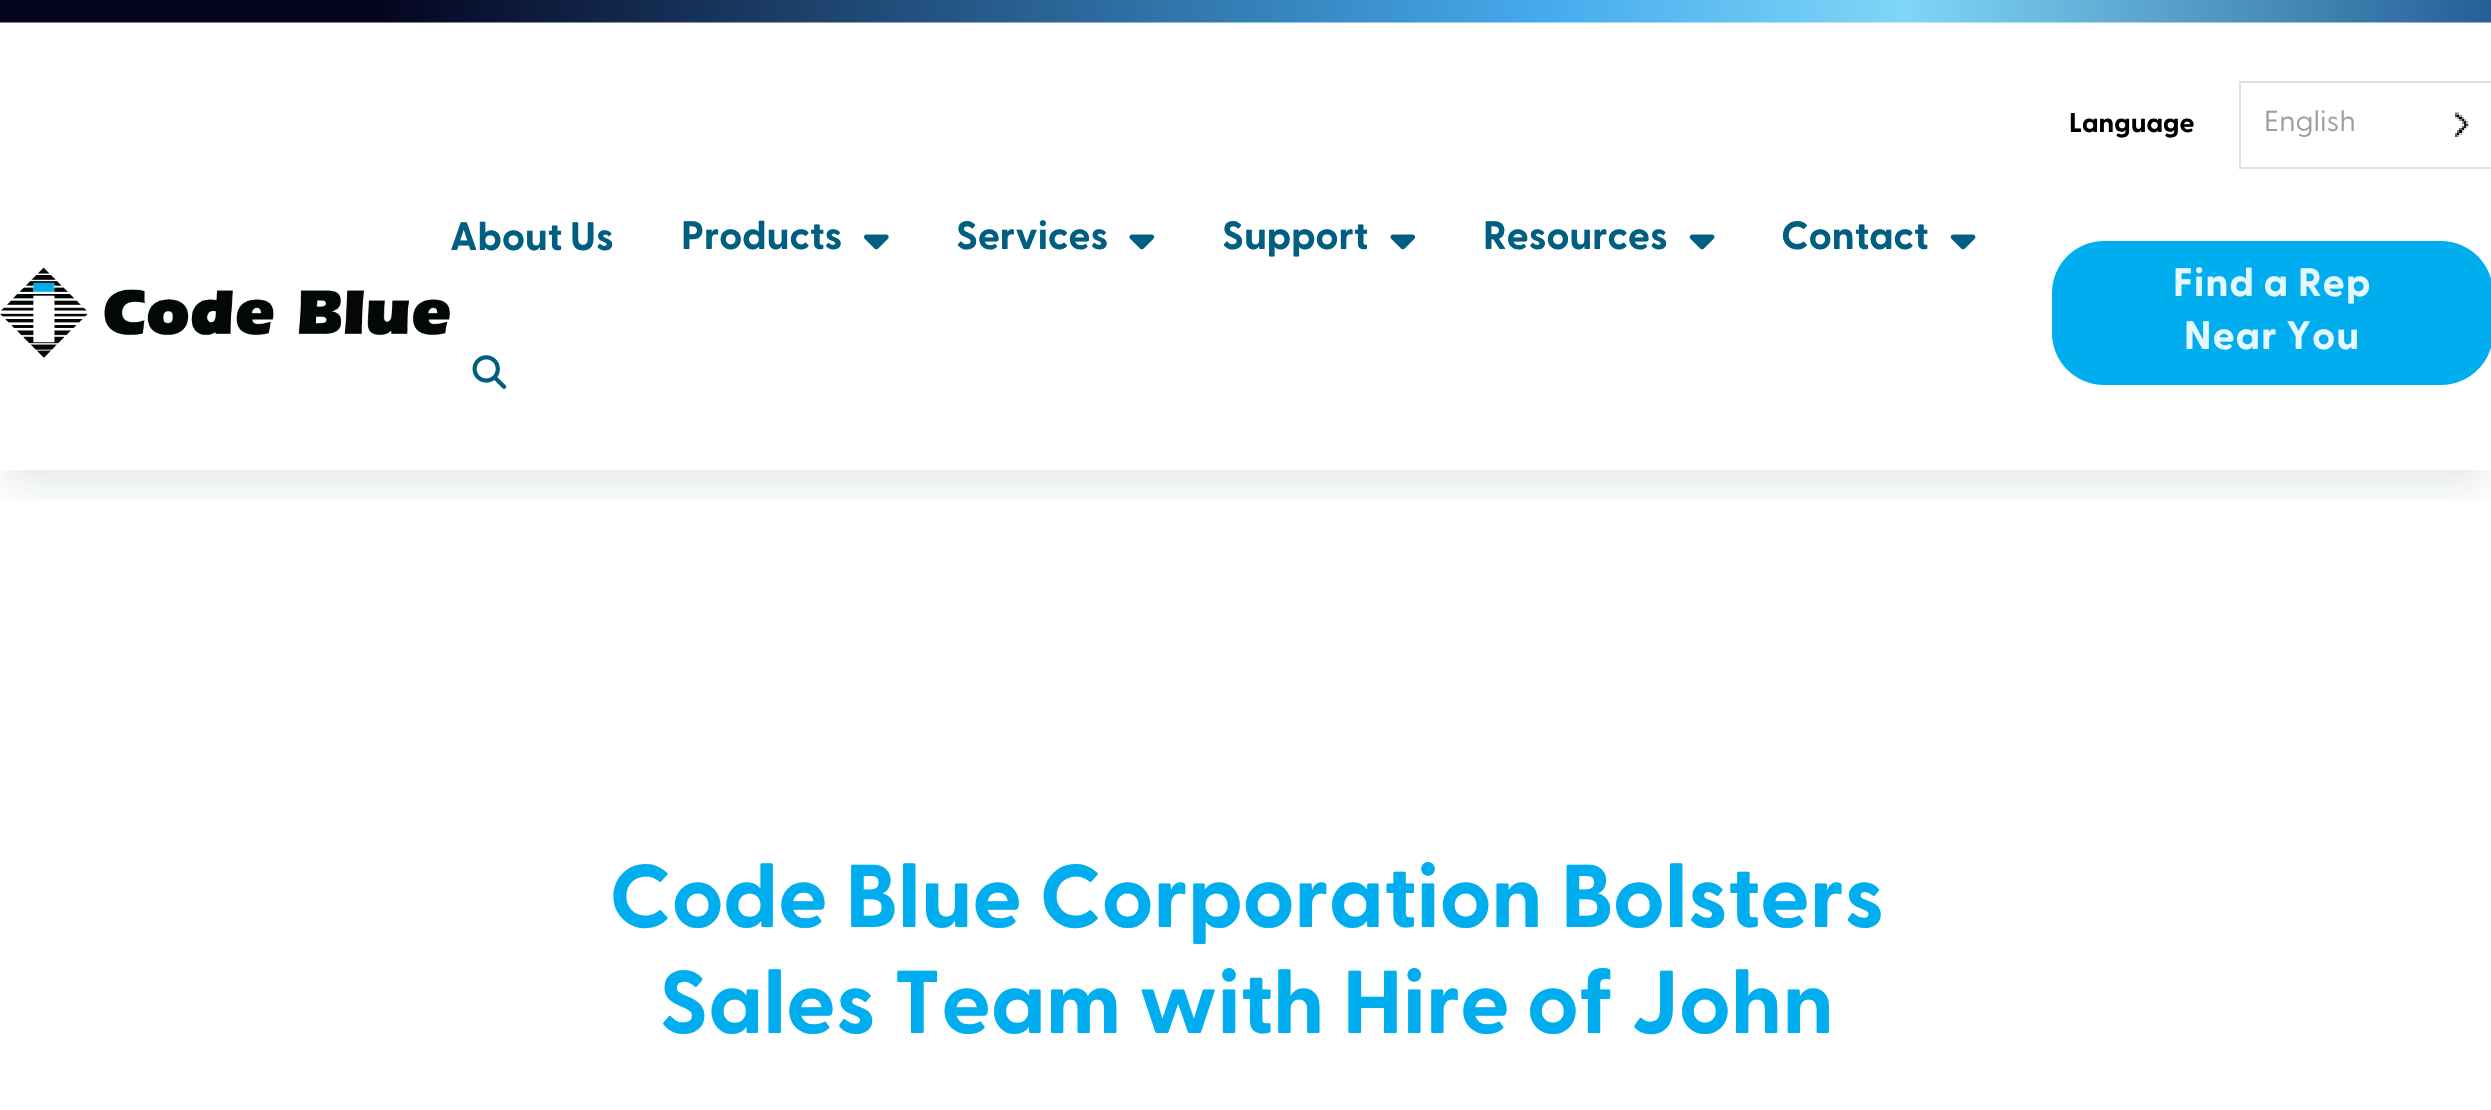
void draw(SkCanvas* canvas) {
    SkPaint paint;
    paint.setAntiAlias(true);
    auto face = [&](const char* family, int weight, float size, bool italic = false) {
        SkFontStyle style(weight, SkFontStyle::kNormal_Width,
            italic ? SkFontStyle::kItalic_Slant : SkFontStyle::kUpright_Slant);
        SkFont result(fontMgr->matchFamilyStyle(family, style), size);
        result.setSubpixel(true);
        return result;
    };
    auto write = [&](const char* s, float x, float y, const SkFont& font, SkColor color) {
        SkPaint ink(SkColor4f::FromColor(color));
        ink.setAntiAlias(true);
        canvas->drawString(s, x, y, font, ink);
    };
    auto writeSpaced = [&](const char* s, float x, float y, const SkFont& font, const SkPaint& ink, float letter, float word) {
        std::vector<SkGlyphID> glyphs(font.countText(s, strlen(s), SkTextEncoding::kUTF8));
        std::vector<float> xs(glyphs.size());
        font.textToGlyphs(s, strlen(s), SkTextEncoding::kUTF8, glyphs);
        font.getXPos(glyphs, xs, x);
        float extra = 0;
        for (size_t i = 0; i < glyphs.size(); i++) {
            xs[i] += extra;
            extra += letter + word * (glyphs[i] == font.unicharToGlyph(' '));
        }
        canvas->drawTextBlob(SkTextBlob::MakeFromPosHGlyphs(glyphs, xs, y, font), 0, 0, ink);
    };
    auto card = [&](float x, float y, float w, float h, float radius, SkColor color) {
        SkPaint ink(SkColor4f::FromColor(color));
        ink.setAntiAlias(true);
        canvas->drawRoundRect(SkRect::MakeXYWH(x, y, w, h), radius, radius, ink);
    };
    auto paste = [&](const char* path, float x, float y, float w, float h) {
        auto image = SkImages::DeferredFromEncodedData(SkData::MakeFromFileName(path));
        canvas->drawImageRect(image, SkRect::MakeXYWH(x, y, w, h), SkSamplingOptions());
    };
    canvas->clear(SK_ColorWHITE);
    canvas->save();
    canvas->clipRect(SkRect::MakeXYWH(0, 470, 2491, 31));
    paint.setColor(SkColorSetARGB(26, 0, 37, 51));
    paint.setMaskFilter(SkMaskFilter::MakeBlur(kNormal_SkBlurStyle, 18));
    canvas->drawRect(SkRect::MakeXYWH(7, 29, 2479, 457), paint);
    paint.setMaskFilter(nullptr);
    canvas->restore();
    paste("pic1.png", 0, 0, 2491, 23);
    auto kFont1 = face("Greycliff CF", 700, 27);
    write("Language", 2069, 132, kFont1, SK_ColorBLACK);
    paint.setStyle(SkPaint::kStroke_Style);
    paint.setStrokeWidth(2);
    paint.setColor(SkColorSetRGB(224, 224, 224));
    canvas->drawRect(SkRect::MakeXYWH(2240, 82, 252, 86), paint);
    auto kFont2 = face("Greycliff CF", 400, 29);
    write("English", 2264, 131, kFont2, SkColorSetRGB(158, 158, 158));
    paste("pic2.png", 2455, 112, 14, 25);
    auto kFont3 = face("Greycliff CF", 700, 39.5f);
    write("About Us", 450, 250, kFont3, SkColorSetRGB(0, 94, 128));
    write("Products", 681, 249, kFont3, SkColorSetRGB(0, 94, 128));
    paste("pic3.png", 864, 234, 25, 16);
    write("Services", 956, 249, kFont3, SkColorSetRGB(0, 94, 128));
    paste("pic4.png", 1129, 234, 26, 16);
    write("Support", 1222, 249, kFont3, SkColorSetRGB(0, 94, 128));
    paste("pic4.png", 1390, 234, 26, 16);
    write("Resources", 1483, 249, kFont3, SkColorSetRGB(0, 94, 128));
    paste("pic5.png", 1689, 234, 26, 16);
    write("Contact", 1781, 249, kFont3, SkColorSetRGB(0, 94, 128));
    paste("pic5.png", 1950, 234, 26, 16);
    paste("pic6.png", 472, 355, 35, 34);
    paste("pic7.png", 0, 267, 450, 91);
    card(2052, 241, 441, 144, 52, SkColorSetRGB(0, 174, 239));
    paint.setStyle(SkPaint::kFill_Style);
    paint.setColor(SkColorSetRGB(230, 248, 255));
    writeSpaced("Find a Rep", 2173, 296, kFont3, paint, 1.1f, 0);
    writeSpaced("Near You", 2184, 349, kFont3, paint, 1.1f, 0);
    auto kFont4 = face("Greycliff CF", 700, 89);
    write("Code Blue Corporation Bolsters", 609, 927, kFont4, SkColorSetRGB(0, 174, 239));
    write("Sales Team with Hire of John", 659, 1033, kFont4, SkColorSetRGB(0, 174, 239));
}
